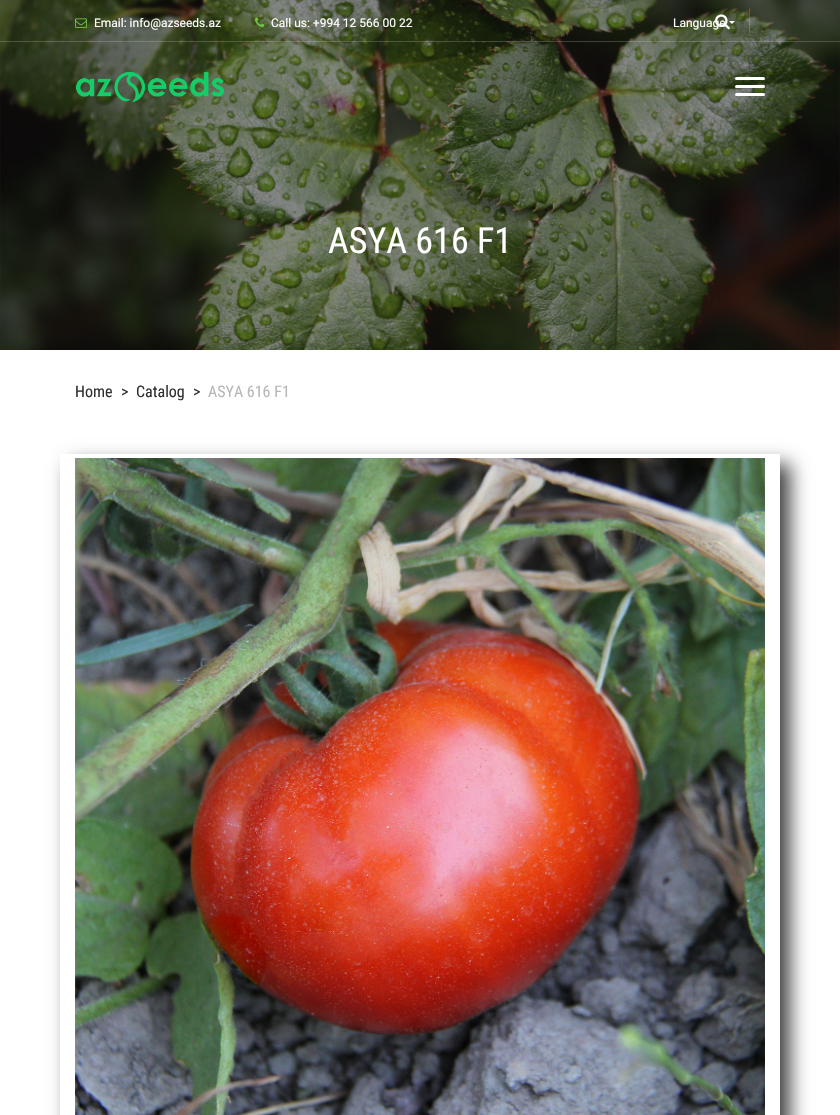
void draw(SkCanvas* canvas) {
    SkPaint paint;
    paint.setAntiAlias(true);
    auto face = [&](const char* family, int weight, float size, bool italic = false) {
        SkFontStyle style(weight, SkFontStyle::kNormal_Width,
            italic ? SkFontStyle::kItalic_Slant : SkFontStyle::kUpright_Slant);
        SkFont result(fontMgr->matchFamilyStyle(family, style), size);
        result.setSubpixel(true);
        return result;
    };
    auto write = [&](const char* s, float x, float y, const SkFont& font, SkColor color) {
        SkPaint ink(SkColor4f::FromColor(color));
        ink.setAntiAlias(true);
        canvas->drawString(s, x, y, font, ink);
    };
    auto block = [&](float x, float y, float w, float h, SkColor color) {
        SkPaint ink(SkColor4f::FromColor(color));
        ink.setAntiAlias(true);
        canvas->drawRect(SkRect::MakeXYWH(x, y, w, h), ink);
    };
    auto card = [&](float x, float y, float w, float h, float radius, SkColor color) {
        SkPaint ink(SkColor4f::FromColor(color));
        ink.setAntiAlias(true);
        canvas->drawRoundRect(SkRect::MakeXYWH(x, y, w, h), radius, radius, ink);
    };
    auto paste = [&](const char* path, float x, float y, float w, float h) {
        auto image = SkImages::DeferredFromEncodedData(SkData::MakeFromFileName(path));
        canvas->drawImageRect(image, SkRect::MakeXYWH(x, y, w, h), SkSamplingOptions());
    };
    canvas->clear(SK_ColorWHITE);
    paste("pic5.png", 0, 0, 840, 350);
    block(0, 41, 840, 1, SkColorSetARGB(51, 235, 235, 235));
    paste("pic1.png", 75, 18, 12, 10);
    auto kFont1 = face("Roboto", 400, 12);
    write("Email: info@azseeds.az", 94, 27, kFont1, SK_ColorWHITE);
    paste("pic2.png", 255, 17, 10, 10);
    write("Call us: +994 12 566 00 22", 271, 27, kFont1, SK_ColorWHITE);
    paste("pic3.png", 715, 14, 15, 16);
    write("Language", 673, 27, kFont1, SK_ColorWHITE);
    paint.setColor(SK_ColorWHITE);
    canvas->drawPath(SkPathBuilder().moveTo(729, 21).lineTo(735, 21).lineTo(732, 24).close().detach(), paint);
    block(749, 9, 1, 24, SkColorSetARGB(51, 235, 235, 235));
    paste("pic4.png", 75, 71, 149, 32);
    card(735, 77, 30, 3, 1.5f, SK_ColorWHITE);
    card(735, 85, 30, 3, 1.5f, SK_ColorWHITE);
    card(735, 93, 30, 3, 1.5f, SK_ColorWHITE);
    auto kFont2 = face("Roboto Condensed", 400, 36);
    write("ASYA 616 F1", 328, 253, kFont2, SK_ColorWHITE);
    auto kFont3 = face("Roboto Condensed", 400, 16);
    write("Home", 75, 397, kFont3, SkColorSetRGB(48, 48, 48));
    write(">", 121, 397, kFont3, SkColorSetRGB(48, 48, 48));
    write("Catalog", 136, 397, kFont3, SkColorSetRGB(48, 48, 48));
    write(">", 193, 397, kFont3, SkColorSetRGB(48, 48, 48));
    write("ASYA 616 F1", 208, 397, kFont3, SkColorSetRGB(183, 183, 183));
    canvas->save();
    canvas->clipPath(SkPathBuilder(SkPathFillType::kEvenOdd).moveTo(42, 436).lineTo(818, 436).lineTo(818, 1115).lineTo(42, 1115).close().moveTo(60, 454).lineTo(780, 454).lineTo(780, 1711).lineTo(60, 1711).close().detach(), true);
    paint.setColor(SkColorSetARGB(191, 0, 0, 0));
    paint.setMaskFilter(SkMaskFilter::MakeBlur(kNormal_SkBlurStyle, 9));
    canvas->drawRect(SkRect::MakeXYWH(70, 464, 720, 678), paint);
    paint.setMaskFilter(nullptr);
    canvas->restore();
    paste("pic6.png", 75, 458, 690, 657);
}
